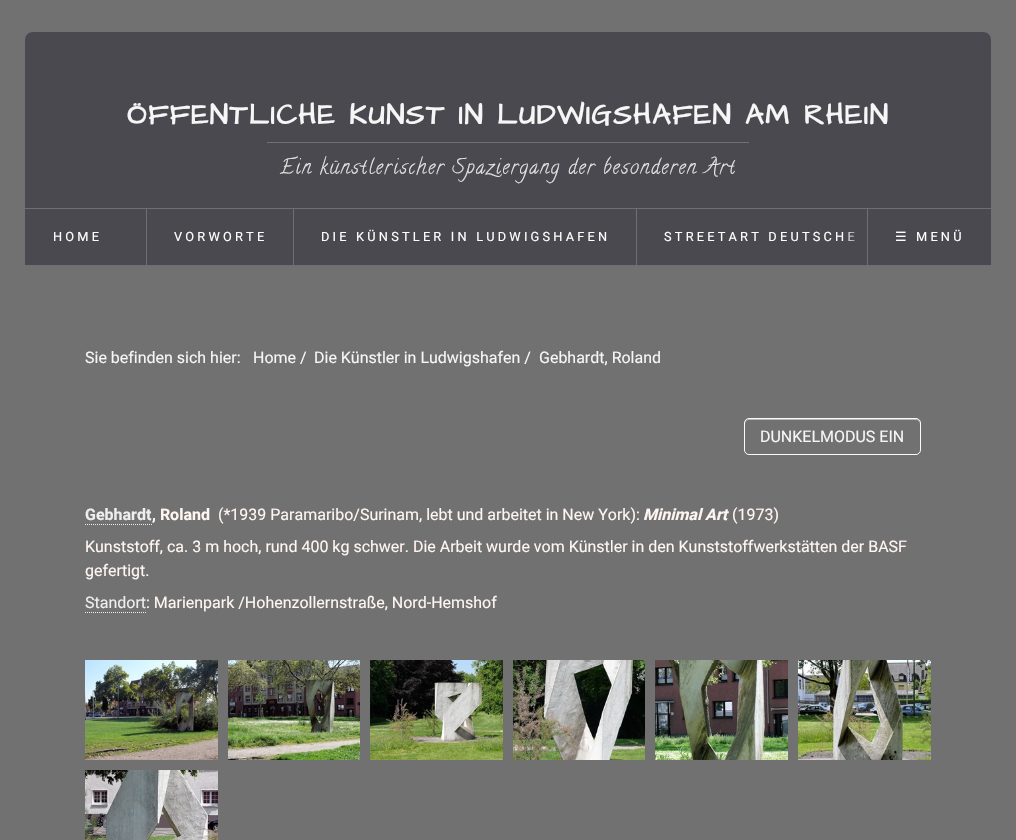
void draw(SkCanvas* canvas) {
    SkPaint paint;
    paint.setAntiAlias(true);
    auto face = [&](const char* family, int weight, float size, bool italic = false) {
        SkFontStyle style(weight, SkFontStyle::kNormal_Width,
            italic ? SkFontStyle::kItalic_Slant : SkFontStyle::kUpright_Slant);
        SkFont result(fontMgr->matchFamilyStyle(family, style), size);
        result.setSubpixel(true);
        return result;
    };
    auto write = [&](const char* s, float x, float y, const SkFont& font, SkColor color) {
        SkPaint ink(SkColor4f::FromColor(color));
        ink.setAntiAlias(true);
        canvas->drawString(s, x, y, font, ink);
    };
    auto writeSpaced = [&](const char* s, float x, float y, const SkFont& font, const SkPaint& ink, float letter, float word) {
        std::vector<SkGlyphID> glyphs(font.countText(s, strlen(s), SkTextEncoding::kUTF8));
        std::vector<float> xs(glyphs.size());
        font.textToGlyphs(s, strlen(s), SkTextEncoding::kUTF8, glyphs);
        font.getXPos(glyphs, xs, x);
        float extra = 0;
        for (size_t i = 0; i < glyphs.size(); i++) {
            xs[i] += extra;
            extra += letter + word * (glyphs[i] == font.unicharToGlyph(' '));
        }
        canvas->drawTextBlob(SkTextBlob::MakeFromPosHGlyphs(glyphs, xs, y, font), 0, 0, ink);
    };
    auto block = [&](float x, float y, float w, float h, SkColor color) {
        SkPaint ink(SkColor4f::FromColor(color));
        ink.setAntiAlias(true);
        canvas->drawRect(SkRect::MakeXYWH(x, y, w, h), ink);
    };
    auto paste = [&](const char* path, float x, float y, float w, float h) {
        auto image = SkImages::DeferredFromEncodedData(SkData::MakeFromFileName(path));
        canvas->drawImageRect(image, SkRect::MakeXYWH(x, y, w, h), SkSamplingOptions());
    };
    canvas->clear(SkColorSetRGB(113, 113, 113));
    paint.setColor(SkColorSetRGB(75, 73, 80));
    canvas->drawPath(SkPathBuilder().moveTo(33, 32).lineTo(983, 32).cubicTo(987.5f, 32, 991, 35.5f, 991, 40).lineTo(991, 265).lineTo(25, 265).lineTo(25, 40).cubicTo(25, 35.5f, 28.5f, 32, 33, 32).close().detach(), paint);
    auto kFont1 = face("Architects Daughter", 700, 28.8f);
    paint.setColor(SkColorSetRGB(246, 246, 246));
    writeSpaced("ÖFFENTLICHE KUNST IN LUDWIGSHAFEN AM RHEIN", 127, 124, kFont1, paint, 1.6f, 0);
    block(267, 142, 482, 1, SkColorSetRGB(112, 109, 120));
    auto kFont2 = face("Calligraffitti", 400, 20);
    paint.setColor(SkColorSetRGB(230, 230, 230));
    writeSpaced("Ein künstlerischer Spaziergang der besonderen Art", 280, 173, kFont2, paint, 1.6f, 0);
    block(25, 208, 966, 1, SkColorSetRGB(112, 109, 120));
    auto kFont3 = face("Roboto", 400, 12.8f);
    paint.setColor(SK_ColorWHITE);
    writeSpaced("HOME", 53, 241, kFont3, paint, 3.2f, 0);
    block(146, 209, 1, 56, SkColorSetRGB(112, 109, 120));
    writeSpaced("VORWORTE", 174, 241, kFont3, paint, 3.2f, 0);
    block(293, 209, 1, 56, SkColorSetRGB(112, 109, 120));
    writeSpaced("DIE KÜNSTLER IN LUDWIGSHAFEN", 321, 241, kFont3, paint, 3.2f, 0);
    block(636, 209, 1, 56, SkColorSetRGB(112, 109, 120));
    writeSpaced("STREETART DEUTSCHE", 664, 241, kFont3, paint, 3.2f, 0);
    block(867, 209, 1, 56, SkColorSetRGB(112, 109, 120));
    {
        const SkColor colors[] = {SkColorSetARGB(0, 75, 73, 80), SkColorSetRGB(75, 73, 80)};
        const float stops[] = {0, 1};
        const SkPoint ends[] = {{842, 237}, {867, 237}};
        paint.setShader(SkGradientShader::MakeLinear(ends, colors, stops, 2, SkTileMode::kClamp));
        paint.setAlpha(255);
    }
    canvas->drawRect(SkRect::MakeXYWH(843, 231, 12, 10), paint);
    auto kFont4 = face("DejaVu Sans", 400, 12.8f);
    paint.setShader(nullptr);
    paint.setColor(SK_ColorWHITE);
    writeSpaced("☰", 895, 241, kFont4, paint, 3.2f, 0);
    writeSpaced("MENÜ", 916, 241, kFont3, paint, 3.2f, 0);
    block(25, 265, 966, 1, SkColorSetRGB(112, 109, 120));
    auto kFont5 = face("Roboto", 400, 16);
    write("Sie befinden sich hier:", 85, 363, kFont5, SkColorSetRGB(246, 246, 246));
    write("Home /", 253, 363, kFont5, SkColorSetRGB(246, 246, 246));
    write("Die Künstler in Ludwigshafen /", 314, 363, kFont5, SkColorSetRGB(246, 246, 246));
    write("Gebhardt, Roland", 539, 363, kFont5, SkColorSetRGB(246, 246, 246));
    paint.setColor(SkColorSetRGB(184, 184, 184));
    canvas->drawPath(SkPathBuilder().moveTo(749, 420).lineTo(916, 420).cubicTo(918, 420, 920, 422, 920, 424).lineTo(920, 423).cubicTo(920, 421, 918, 419, 916, 419).lineTo(749, 419).cubicTo(747, 419, 745, 421, 745, 423).lineTo(745, 424).cubicTo(745, 422, 747, 420, 749, 420).close().detach(), paint);
    paint.setStyle(SkPaint::kStroke_Style);
    paint.setStrokeWidth(1);
    paint.setColor(SkColorSetRGB(250, 250, 250));
    canvas->drawRoundRect(SkRect::MakeXYWH(744.5f, 418.5f, 176, 36), 4.5f, 4.5f, paint);
    write("DUNKELMODUS EIN", 760, 442, kFont5, SkColorSetRGB(246, 246, 246));
    auto kFont6 = face("Roboto", 700, 16);
    write("Gebhardt", 85, 520, kFont6, SkColorSetRGB(238, 238, 238));
    paint.setColor(SkColorSetRGB(238, 238, 238));
    paint.setPathEffect(SkDashPathEffect::Make({{1, 1}}, 0));
    canvas->drawPath(SkPathBuilder().moveTo(85, 524.5f).lineTo(152, 524.5f).detach(), paint);
    paint.setPathEffect(nullptr);
    write(", Roland", 152, 520, kFont6, SkColorSetRGB(255, 246, 242));
    write("(*1939 Paramaribo/Surinam, lebt und arbeitet in New York):", 218, 520, kFont5, SkColorSetRGB(255, 246, 242));
    auto kFont7 = face("Roboto", 700, 16, true);
    write("Minimal Art", 643, 520, kFont7, SkColorSetRGB(255, 246, 242));
    write("(1973)", 732, 520, kFont5, SkColorSetRGB(255, 246, 242));
    write("Kunststoff, ca. 3 m hoch, rund 400 kg schwer. Die Arbeit wurde vom Künstler in den Kunststoffwerkstätten der BASF", 85, 552, kFont5, SkColorSetRGB(255, 246, 242));
    write("gefertigt.", 85, 576, kFont5, SkColorSetRGB(255, 246, 242));
    write("Standort", 85, 608, kFont5, SkColorSetRGB(238, 238, 238));
    paint.setPathEffect(SkDashPathEffect::Make({{1, 1}}, 0));
    canvas->drawPath(SkPathBuilder().moveTo(85, 612.5f).lineTo(146, 612.5f).detach(), paint);
    paint.setPathEffect(nullptr);
    write(": Marienpark /Hohenzollernstraße, Nord-Hemshof", 146, 608, kFont5, SkColorSetRGB(255, 246, 242));
    paste("pic1.png", 85, 660, 133, 100);
    paste("pic2.png", 228, 660, 132, 100);
    paste("pic3.png", 370, 660, 133, 100);
    paste("pic4.png", 513, 660, 132, 100);
    paste("pic5.png", 655, 660, 133, 100);
    paste("pic6.png", 798, 660, 133, 100);
    paste("pic7.png", 85, 770, 133, 70);
}
